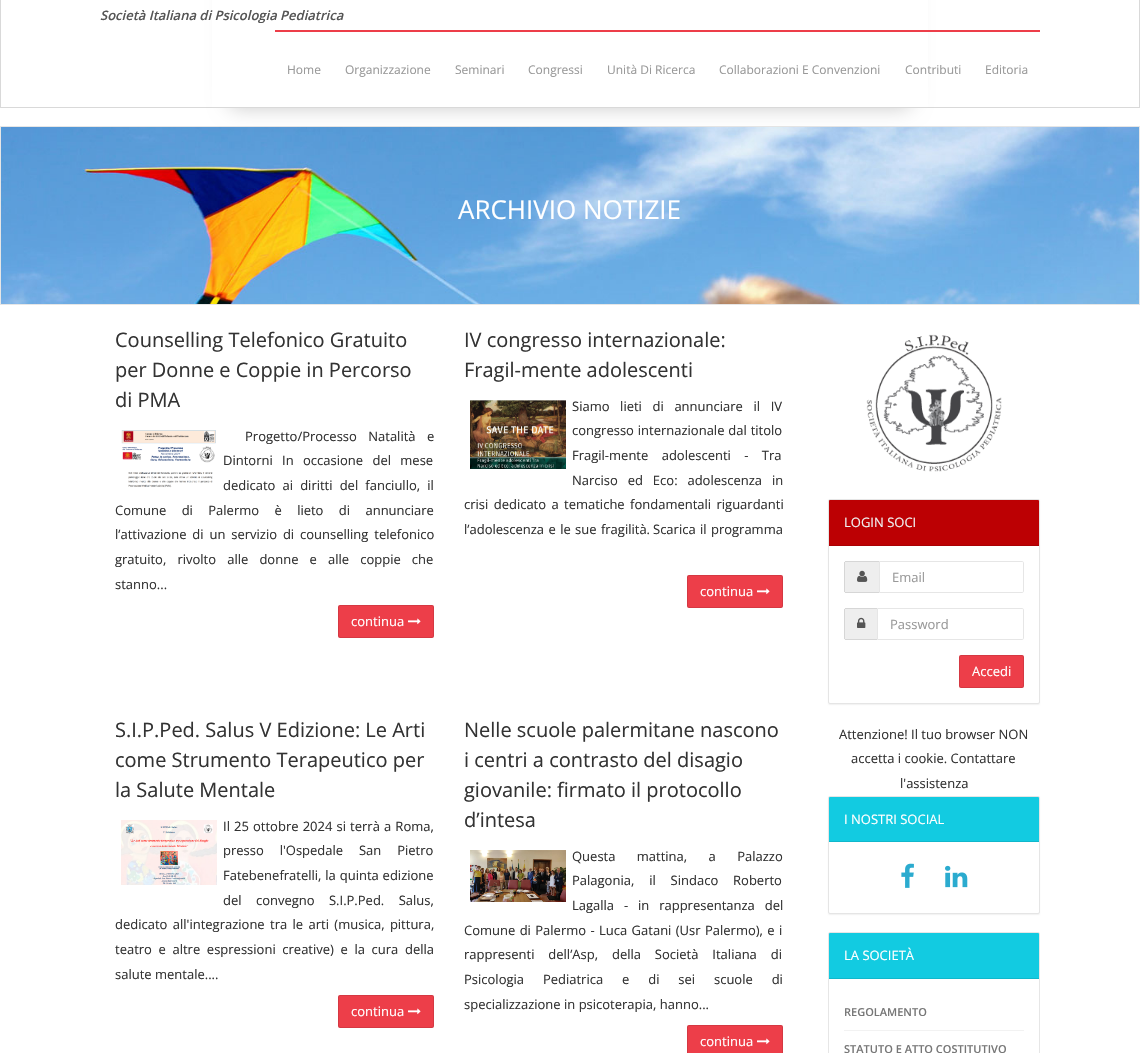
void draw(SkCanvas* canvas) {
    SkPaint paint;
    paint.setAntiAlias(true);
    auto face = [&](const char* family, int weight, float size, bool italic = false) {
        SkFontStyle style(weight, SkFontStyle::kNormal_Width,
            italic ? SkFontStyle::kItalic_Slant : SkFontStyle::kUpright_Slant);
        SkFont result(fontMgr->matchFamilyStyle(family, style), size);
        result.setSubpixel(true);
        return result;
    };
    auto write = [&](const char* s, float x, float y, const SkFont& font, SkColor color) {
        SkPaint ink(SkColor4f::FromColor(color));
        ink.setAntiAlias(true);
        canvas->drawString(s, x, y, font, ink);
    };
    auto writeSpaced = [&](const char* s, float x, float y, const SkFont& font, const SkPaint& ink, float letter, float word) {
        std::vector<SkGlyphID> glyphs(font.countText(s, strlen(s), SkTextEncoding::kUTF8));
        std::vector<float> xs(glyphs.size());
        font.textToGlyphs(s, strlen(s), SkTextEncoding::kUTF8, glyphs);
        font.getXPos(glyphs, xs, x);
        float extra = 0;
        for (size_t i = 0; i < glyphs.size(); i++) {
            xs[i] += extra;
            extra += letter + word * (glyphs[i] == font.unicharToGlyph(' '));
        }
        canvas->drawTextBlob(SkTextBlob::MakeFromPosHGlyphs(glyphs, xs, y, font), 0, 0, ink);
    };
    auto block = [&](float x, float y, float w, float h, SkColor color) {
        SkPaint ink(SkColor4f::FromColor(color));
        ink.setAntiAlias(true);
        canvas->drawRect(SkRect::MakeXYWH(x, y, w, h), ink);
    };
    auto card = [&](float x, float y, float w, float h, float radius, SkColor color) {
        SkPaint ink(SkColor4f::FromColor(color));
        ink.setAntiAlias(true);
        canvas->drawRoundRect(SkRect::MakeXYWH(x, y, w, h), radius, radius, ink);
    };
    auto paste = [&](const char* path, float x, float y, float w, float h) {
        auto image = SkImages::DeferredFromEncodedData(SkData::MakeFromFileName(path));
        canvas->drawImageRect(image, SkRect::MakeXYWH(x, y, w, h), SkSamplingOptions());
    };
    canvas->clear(SK_ColorWHITE);
    paste("pic1.png", 1, 127, 1138, 177);
    paint.setStyle(SkPaint::kStroke_Style);
    paint.setStrokeWidth(1);
    paint.setColor(SkColorSetRGB(230, 230, 230));
    canvas->drawRect(SkRect::MakeXYWH(0.5f, 126.5f, 1139, 178), paint);
    paint.setStyle(SkPaint::kFill_Style);
    paint.setColor(SkColorSetARGB(51, 0, 0, 0));
    paint.setMaskFilter(SkMaskFilter::MakeBlur(kNormal_SkBlurStyle, 10));
    canvas->drawRoundRect(SkRect::MakeXYWH(228, -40, 684, 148), 10, 10, paint);
    paint.setMaskFilter(nullptr);
    block(212, 0, 716, 108, SK_ColorWHITE);
    paint.setColor(SkColorSetRGB(217, 217, 217));
    canvas->drawPath(SkPathBuilder().moveTo(1140, -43).lineTo(1140, 108).lineTo(1139, 107).lineTo(1139, -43).close().detach(), paint);
    paint.setColor(SkColorSetARGB(38, 0, 0, 0));
    canvas->drawPath(SkPathBuilder().moveTo(1140, 108).lineTo(0, 108).lineTo(1, 107).lineTo(1139, 107).close().detach(), paint);
    canvas->drawPath(SkPathBuilder().moveTo(0, 108).lineTo(0, -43).lineTo(1, -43).lineTo(1, 107).close().detach(), paint);
    auto kFont1 = face("Open Sans", 600, 13, true);
    write("Società Italiana di Psicologia Pediatrica", 100, 20, kFont1, SkColorSetRGB(85, 85, 85));
    block(275, 30, 765, 2, SkColorSetRGB(237, 62, 73));
    auto kFont2 = face("Open Sans", 400, 12);
    write("Home", 287, 74, kFont2, SkColorSetRGB(153, 153, 153));
    write("Organizzazione", 345, 74, kFont2, SkColorSetRGB(153, 153, 153));
    write("Seminari", 455, 74, kFont2, SkColorSetRGB(153, 153, 153));
    write("Congressi", 528, 74, kFont2, SkColorSetRGB(153, 153, 153));
    write("Unità Di Ricerca", 607, 74, kFont2, SkColorSetRGB(153, 153, 153));
    write("Collaborazioni E Convenzioni", 719, 74, kFont2, SkColorSetRGB(153, 153, 153));
    write("Contributi", 905, 74, kFont2, SkColorSetRGB(153, 153, 153));
    write("Editoria", 985, 74, kFont2, SkColorSetRGB(153, 153, 153));
    auto kFont3 = face("Open Sans", 400, 26);
    write("ARCHIVIO NOTIZIE", 458, 219, kFont3, SK_ColorWHITE);
    auto kFont4 = face("Open Sans", 400, 20);
    write("Counselling Telefonico Gratuito", 115, 347, kFont4, SkColorSetRGB(51, 51, 51));
    write("per Donne e Coppie in Percorso", 115, 377, kFont4, SkColorSetRGB(51, 51, 51));
    write("di PMA", 115, 407, kFont4, SkColorSetRGB(51, 51, 51));
    paste("pic2.png", 121, 430, 95, 58);
    auto kFont5 = face("Open Sans", 400, 13);
    paint.setColor(SkColorSetRGB(51, 51, 51));
    writeSpaced("Progetto/Processo Natalità e", 245, 441, kFont5, paint, 0, 8);
    write("Dintorni", 223, 465, kFont5, SkColorSetRGB(51, 51, 51));
    writeSpaced("In occasione del mese", 282, 465, kFont5, paint, 0, 6);
    writeSpaced("dedicato ai diritti del fanciullo, il", 223, 490, kFont5, paint, 0, 3.75f);
    writeSpaced("Comune di Palermo è lieto di annunciare", 115, 515, kFont5, paint, 0, 12);
    writeSpaced("l’attivazione di un servizio di counselling telefonico", 115, 539, kFont5, paint, 0, 2.5f);
    writeSpaced("gratuito, rivolto alle donne e alle coppie che", 115, 564, kFont5, paint, 0, 7.75f);
    write("stanno...", 115, 589, kFont5, SkColorSetRGB(51, 51, 51));
    card(338, 605, 96, 33, 2, SkColorSetRGB(237, 62, 73));
    paint.setStyle(SkPaint::kStroke_Style);
    paint.setColor(SkColorSetARGB(26, 0, 0, 0));
    canvas->drawRoundRect(SkRect::MakeXYWH(338.5f, 605.5f, 95, 32), 1.5f, 1.5f, paint);
    write("continua", 351, 626, kFont5, SK_ColorWHITE);
    paste("pic3.png", 408, 618, 13, 7);
    write("IV congresso internazionale:", 464, 347, kFont4, SkColorSetRGB(51, 51, 51));
    write("Fragil-mente adolescenti", 464, 377, kFont4, SkColorSetRGB(51, 51, 51));
    paste("pic4.png", 470, 400, 96, 69);
    paint.setStyle(SkPaint::kFill_Style);
    paint.setColor(SkColorSetRGB(51, 51, 51));
    writeSpaced("Siamo lieti di annunciare il IV", 572, 411, kFont5, paint, 0, 7.25f);
    writeSpaced("congresso internazionale dal titolo", 572, 435, kFont5, paint, 0, 0.5f);
    writeSpaced("Fragil-mente adolescenti - Tra", 572, 460, kFont5, paint, 0, 10);
    writeSpaced("Narciso ed Eco: adolescenza in", 572, 485, kFont5, paint, 0, 6.5f);
    writeSpaced("crisi dedicato a tematiche fondamentali riguardanti", 464, 509, kFont5, paint, 0, 2);
    writeSpaced("l’adolescenza e le sue fragilità.", 464, 534, kFont5, paint, 0, 1);
    writeSpaced("Scarica il programma", 653, 534, kFont5, paint, 0, 1);
    card(687, 575, 96, 33, 2, SkColorSetRGB(237, 62, 73));
    paint.setStyle(SkPaint::kStroke_Style);
    paint.setColor(SkColorSetARGB(26, 0, 0, 0));
    canvas->drawRoundRect(SkRect::MakeXYWH(687.5f, 575.5f, 95, 32), 1.5f, 1.5f, paint);
    write("continua", 700, 596, kFont5, SK_ColorWHITE);
    paste("pic3.png", 757, 588, 13, 7);
    write("S.I.P.Ped. Salus V Edizione: Le Arti", 115, 737, kFont4, SkColorSetRGB(51, 51, 51));
    write("come Strumento Terapeutico per", 115, 767, kFont4, SkColorSetRGB(51, 51, 51));
    write("la Salute Mentale", 115, 797, kFont4, SkColorSetRGB(51, 51, 51));
    paste("pic5.png", 121, 820, 96, 65);
    paint.setStyle(SkPaint::kFill_Style);
    paint.setColor(SkColorSetRGB(51, 51, 51));
    writeSpaced("Il 25 ottobre 2024 si terrà a Roma,", 223, 831, kFont5, paint, 0, 0.75f);
    writeSpaced("presso l'Ospedale San Pietro", 223, 855, kFont5, paint, 0, 12.5f);
    writeSpaced("Fatebenefratelli, la quinta edizione", 223, 880, kFont5, paint, 0, 0.5f);
    writeSpaced("del convegno S.I.P.Ped. Salus,", 223, 905, kFont5, paint, 0, 11);
    writeSpaced("dedicato all'integrazione tra le arti (musica, pittura,", 115, 929, kFont5, paint, 0, 2);
    writeSpaced("teatro e altre espressioni creative) e la cura della", 115, 954, kFont5, paint, 0, 3.25f);
    write("salute mentale....", 115, 979, kFont5, SkColorSetRGB(51, 51, 51));
    card(338, 995, 96, 33, 2, SkColorSetRGB(237, 62, 73));
    paint.setStyle(SkPaint::kStroke_Style);
    paint.setColor(SkColorSetARGB(26, 0, 0, 0));
    canvas->drawRoundRect(SkRect::MakeXYWH(338.5f, 995.5f, 95, 32), 1.5f, 1.5f, paint);
    write("continua", 351, 1016, kFont5, SK_ColorWHITE);
    paste("pic3.png", 408, 1008, 13, 7);
    write("Nelle scuole palermitane nascono", 464, 737, kFont4, SkColorSetRGB(51, 51, 51));
    write("i centri a contrasto del disagio", 464, 767, kFont4, SkColorSetRGB(51, 51, 51));
    write("giovanile: firmato il protocollo", 464, 797, kFont4, SkColorSetRGB(51, 51, 51));
    write("d’intesa", 464, 827, kFont4, SkColorSetRGB(51, 51, 51));
    paste("pic6.png", 470, 850, 96, 52);
    paint.setStyle(SkPaint::kFill_Style);
    paint.setColor(SkColorSetRGB(51, 51, 51));
    writeSpaced("Questa mattina, a Palazzo", 572, 861, kFont5, paint, 0, 18);
    writeSpaced("Palagonia, il Sindaco Roberto", 572, 885, kFont5, paint, 0, 11.5f);
    writeSpaced("Lagalla - in rappresentanza del", 572, 910, kFont5, paint, 0, 6.5f);
    writeSpaced("Comune di Palermo - Luca Gatani (Usr Palermo), e i", 464, 935, kFont5, paint, 0, 1);
    writeSpaced("rappresenti dell’Asp, della Società Italiana di", 464, 959, kFont5, paint, 0, 10.5f);
    writeSpaced("Psicologia Pediatrica e di sei scuole di", 464, 984, kFont5, paint, 0, 15.5f);
    write("specializzazione in psicoterapia, hanno...", 464, 1009, kFont5, SkColorSetRGB(51, 51, 51));
    card(687, 1025, 96, 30, 2, SkColorSetRGB(237, 62, 73));
    paint.setStyle(SkPaint::kStroke_Style);
    paint.setColor(SkColorSetARGB(26, 0, 0, 0));
    canvas->drawRoundRect(SkRect::MakeXYWH(687.5f, 1025.5f, 95, 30), 1.5f, 1.5f, paint);
    write("continua", 700, 1046, kFont5, SK_ColorWHITE);
    paste("pic3.png", 757, 1038, 13, 7);
    paste("pic7.png", 866, 334, 136, 138);
    paint.setStyle(SkPaint::kFill_Style);
    paint.setColor(SkColorSetARGB(13, 0, 0, 0));
    paint.setMaskFilter(SkMaskFilter::MakeBlur(kNormal_SkBlurStyle, 0.5f));
    canvas->drawRoundRect(SkRect::MakeXYWH(828, 500, 212, 205), 2, 2, paint);
    paint.setMaskFilter(nullptr);
    paint.setColor(SK_ColorWHITE);
    canvas->drawRoundRect(SkRect::MakeXYWH(828.5f, 499.5f, 211, 204), 1.5f, 1.5f, paint);
    paint.setStyle(SkPaint::kStroke_Style);
    paint.setColor(SkColorSetRGB(229, 229, 229));
    canvas->drawRoundRect(SkRect::MakeXYWH(828.5f, 499.5f, 211, 204), 1.5f, 1.5f, paint);
    paint.setStyle(SkPaint::kFill_Style);
    paint.setColor(SkColorSetRGB(188, 0, 3));
    canvas->drawPath(SkPathBuilder().moveTo(830, 500).lineTo(1038, 500).cubicTo(1038.5f, 500, 1039, 500.5f, 1039, 501).lineTo(1039, 546).lineTo(829, 546).lineTo(829, 501).cubicTo(829, 500.5f, 829.5f, 500, 830, 500).close().detach(), paint);
    block(829, 545, 210, 1, SkColorSetRGB(169, 0, 3));
    write("LOGIN SOCI", 844, 527, kFont5, SkColorSetRGB(240, 240, 240));
    paint.setColor(SkColorSetRGB(238, 238, 238));
    canvas->drawPath(SkPathBuilder().moveTo(846, 561).lineTo(879, 561).lineTo(879, 593).lineTo(846, 593).cubicTo(845, 593, 844, 592, 844, 591).lineTo(844, 563).cubicTo(844, 562, 845, 561, 846, 561).close().detach(), paint);
    block(845, 561, 34, 1, SkColorSetRGB(214, 214, 214));
    block(845, 592, 34, 1, SkColorSetRGB(214, 214, 214));
    block(844, 562, 1, 30, SkColorSetRGB(214, 214, 214));
    paste("pic8.png", 857, 570, 11, 12);
    paint.setStyle(SkPaint::kStroke_Style);
    paint.setColor(SkColorSetRGB(230, 230, 230));
    canvas->drawPath(SkPathBuilder().moveTo(879.5f, 561.5f).lineTo(1022, 561.5f).cubicTo(1023, 561.5f, 1023.5f, 562, 1023.5f, 563).lineTo(1023.5f, 591).cubicTo(1023.5f, 592, 1023, 592.5f, 1022, 592.5f).lineTo(879.5f, 592.5f).close().detach(), paint);
    write("Email", 892, 582, kFont5, SkColorSetRGB(153, 153, 153));
    paint.setStyle(SkPaint::kFill_Style);
    paint.setColor(SkColorSetRGB(238, 238, 238));
    canvas->drawPath(SkPathBuilder().moveTo(846, 608).lineTo(877, 608).lineTo(877, 640).lineTo(846, 640).cubicTo(845, 640, 844, 639, 844, 638).lineTo(844, 610).cubicTo(844, 609, 845, 608, 846, 608).close().detach(), paint);
    block(845, 608, 32, 1, SkColorSetRGB(214, 214, 214));
    block(845, 639, 32, 1, SkColorSetRGB(214, 214, 214));
    block(844, 609, 1, 30, SkColorSetRGB(214, 214, 214));
    paste("pic9.png", 857, 617, 9, 11);
    paint.setStyle(SkPaint::kStroke_Style);
    paint.setColor(SkColorSetRGB(230, 230, 230));
    canvas->drawPath(SkPathBuilder().moveTo(877.5f, 608.5f).lineTo(1022, 608.5f).cubicTo(1023, 608.5f, 1023.5f, 609, 1023.5f, 610).lineTo(1023.5f, 638).cubicTo(1023.5f, 639, 1023, 639.5f, 1022, 639.5f).lineTo(877.5f, 639.5f).close().detach(), paint);
    write("Password", 890, 629, kFont5, SkColorSetRGB(153, 153, 153));
    card(959, 655, 65, 33, 2, SkColorSetRGB(237, 62, 73));
    paint.setColor(SkColorSetARGB(26, 0, 0, 0));
    canvas->drawRoundRect(SkRect::MakeXYWH(959.5f, 655.5f, 64, 32), 1.5f, 1.5f, paint);
    write("Accedi", 972, 676, kFont5, SK_ColorWHITE);
    write("Attenzione! Il tuo browser NON", 839, 739, kFont5, SkColorSetRGB(51, 51, 51));
    write("accetta i cookie. Contattare", 851, 763, kFont5, SkColorSetRGB(51, 51, 51));
    write("l'assistenza", 900, 788, kFont5, SkColorSetRGB(51, 51, 51));
    paint.setStyle(SkPaint::kFill_Style);
    paint.setColor(SkColorSetARGB(13, 0, 0, 0));
    paint.setMaskFilter(SkMaskFilter::MakeBlur(kNormal_SkBlurStyle, 0.5f));
    canvas->drawRoundRect(SkRect::MakeXYWH(828, 797, 212, 118), 2, 2, paint);
    paint.setMaskFilter(nullptr);
    paint.setColor(SK_ColorWHITE);
    canvas->drawRoundRect(SkRect::MakeXYWH(828.5f, 796.5f, 211, 117), 1.5f, 1.5f, paint);
    paint.setStyle(SkPaint::kStroke_Style);
    paint.setColor(SkColorSetRGB(229, 229, 229));
    canvas->drawRoundRect(SkRect::MakeXYWH(828.5f, 796.5f, 211, 117), 1.5f, 1.5f, paint);
    paint.setStyle(SkPaint::kFill_Style);
    paint.setColor(SkColorSetRGB(18, 203, 225));
    canvas->drawPath(SkPathBuilder().moveTo(830, 797).lineTo(1038, 797).cubicTo(1038.5f, 797, 1039, 797.5f, 1039, 798).lineTo(1039, 842).lineTo(829, 842).lineTo(829, 798).cubicTo(829, 797.5f, 829.5f, 797, 830, 797).close().detach(), paint);
    block(829, 841, 210, 1, SkColorSetRGB(16, 183, 203));
    write("I NOSTRI SOCIAL", 844, 824, kFont5, SK_ColorWHITE);
    paste("pic10.png", 901, 863, 13, 25);
    paste("pic11.png", 945, 865, 23, 23);
    paint.setStyle(SkPaint::kStroke_Style);
    paint.setColor(SkColorSetRGB(230, 230, 230));
    canvas->drawRoundRect(SkRect::MakeXYWH(828.5f, 932.5f, 211, 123), 1.5f, 1.5f, paint);
    paint.setStyle(SkPaint::kFill_Style);
    paint.setColor(SkColorSetRGB(18, 203, 225));
    canvas->drawPath(SkPathBuilder().moveTo(830, 933).lineTo(1038, 933).cubicTo(1038.5f, 933, 1039, 933.5f, 1039, 934).lineTo(1039, 979).lineTo(829, 979).lineTo(829, 934).cubicTo(829, 933.5f, 829.5f, 933, 830, 933).close().detach(), paint);
    block(829, 978, 210, 1, SkColorSetRGB(16, 183, 203));
    write("LA SOCIETÀ", 844, 960, kFont5, SK_ColorWHITE);
    block(844, 1030, 180, 1, SkColorSetRGB(242, 242, 242));
    auto kFont6 = face("Open Sans", 600, 11);
    write("REGOLAMENTO", 844, 1016, kFont6, SkColorSetRGB(119, 119, 119));
    write("STATUTO E ATTO COSTITUTIVO", 844, 1053, kFont6, SkColorSetRGB(119, 119, 119));
}
